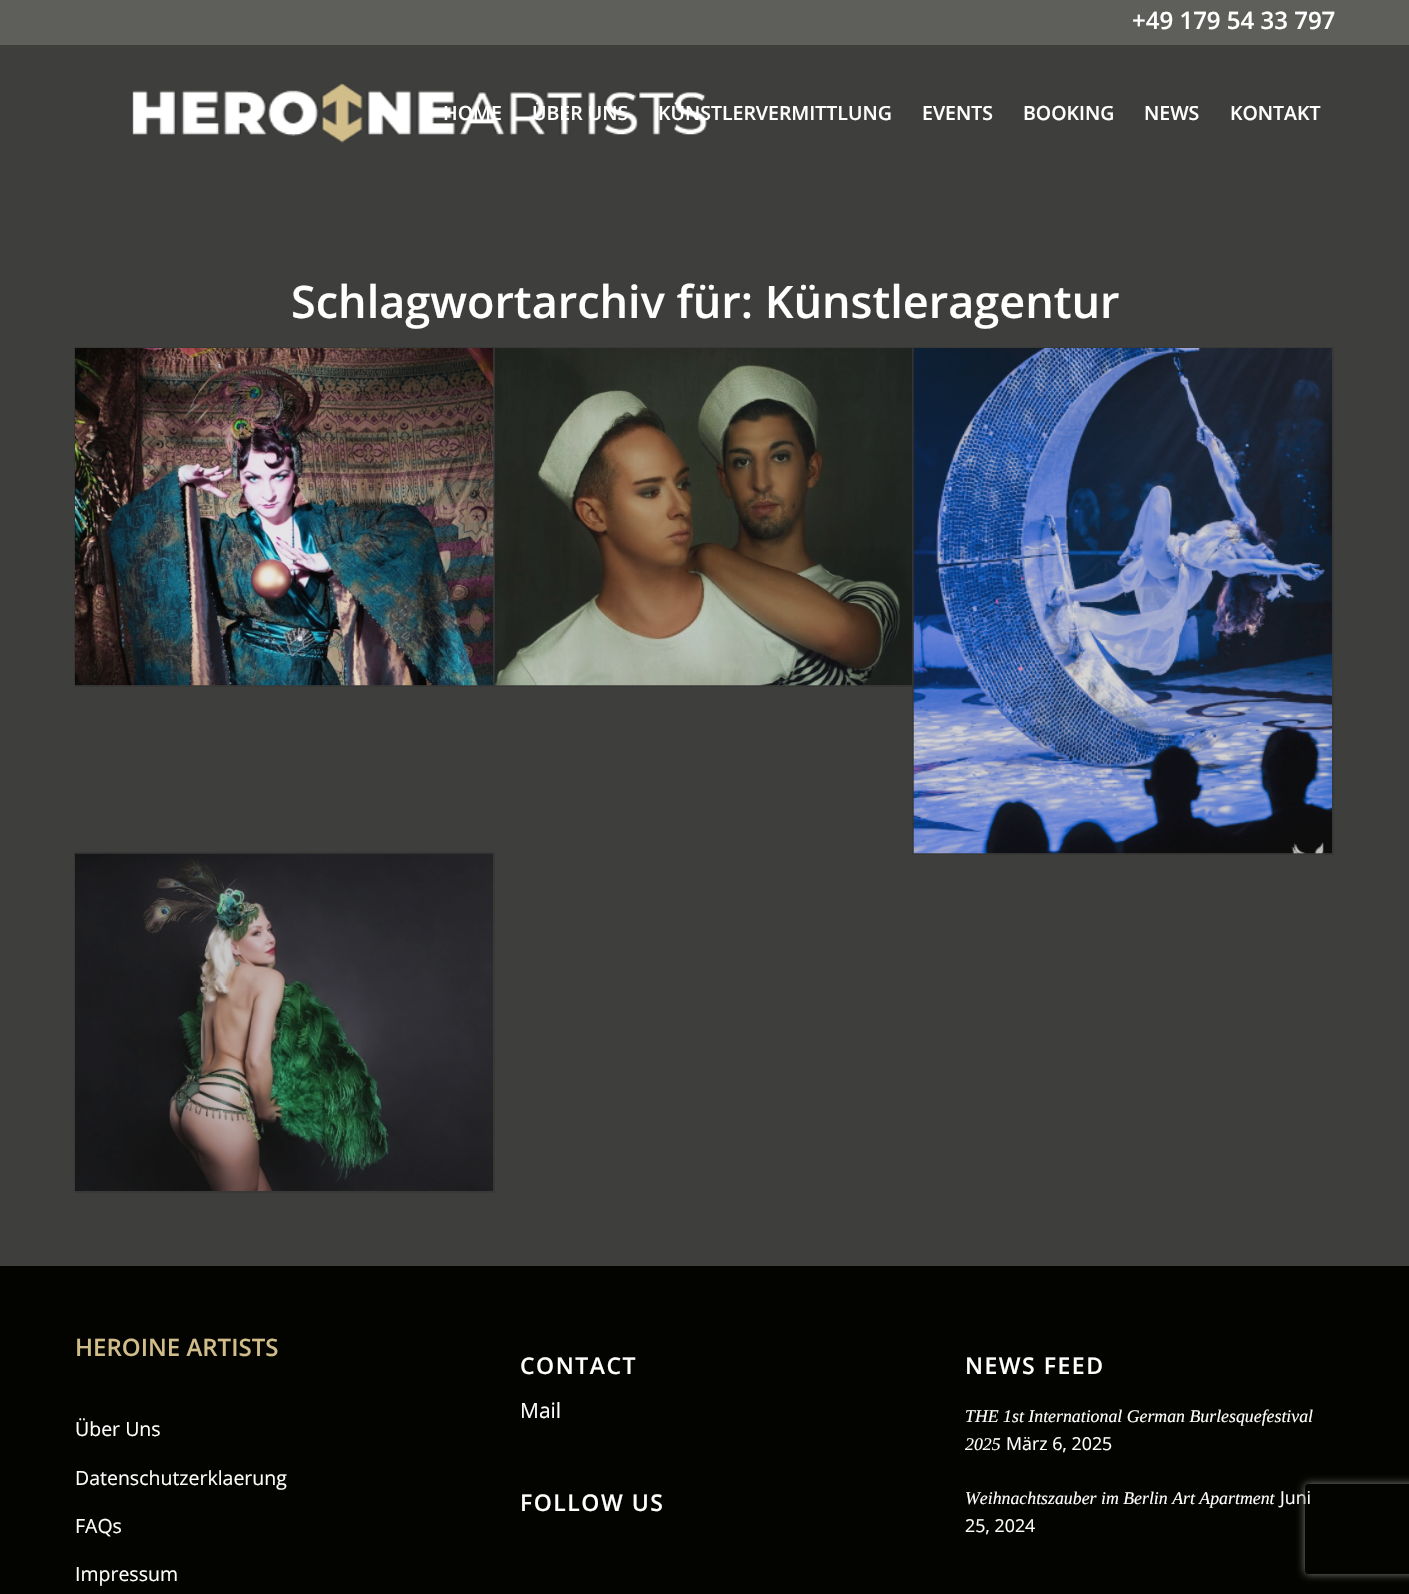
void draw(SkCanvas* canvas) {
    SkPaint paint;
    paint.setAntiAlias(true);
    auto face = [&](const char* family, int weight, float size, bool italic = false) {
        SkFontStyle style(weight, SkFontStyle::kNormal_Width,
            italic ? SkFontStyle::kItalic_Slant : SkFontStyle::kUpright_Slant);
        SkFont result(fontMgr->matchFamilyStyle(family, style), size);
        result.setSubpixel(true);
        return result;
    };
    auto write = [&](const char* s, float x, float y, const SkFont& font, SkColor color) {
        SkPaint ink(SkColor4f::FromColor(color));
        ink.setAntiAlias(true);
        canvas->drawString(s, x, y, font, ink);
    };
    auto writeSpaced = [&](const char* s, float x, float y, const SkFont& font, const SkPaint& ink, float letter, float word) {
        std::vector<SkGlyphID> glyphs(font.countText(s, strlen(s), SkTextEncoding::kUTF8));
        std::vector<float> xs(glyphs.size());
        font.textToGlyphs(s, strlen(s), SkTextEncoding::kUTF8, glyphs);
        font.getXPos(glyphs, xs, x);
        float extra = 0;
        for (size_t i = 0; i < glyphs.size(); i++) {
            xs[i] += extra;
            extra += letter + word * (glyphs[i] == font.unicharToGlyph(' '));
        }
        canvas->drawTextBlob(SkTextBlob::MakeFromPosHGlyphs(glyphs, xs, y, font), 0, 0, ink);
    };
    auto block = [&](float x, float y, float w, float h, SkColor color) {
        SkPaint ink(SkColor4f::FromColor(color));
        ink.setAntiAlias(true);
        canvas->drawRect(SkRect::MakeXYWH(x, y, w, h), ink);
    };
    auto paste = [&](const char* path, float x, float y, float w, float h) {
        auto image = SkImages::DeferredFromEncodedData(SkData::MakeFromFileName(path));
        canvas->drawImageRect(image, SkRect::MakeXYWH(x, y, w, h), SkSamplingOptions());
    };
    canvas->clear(SkColorSetRGB(62, 62, 60));
    block(0, 0, 1409, 45, SkColorSetRGB(94, 94, 90));
    auto kFont1 = face("Open Sans", 600, 24);
    write("+49 179 54 33 797", 1132, 29, kFont1, SK_ColorWHITE);
    paste("pic1.png", 132, 83, 575, 60);
    auto kFont2 = face("Open Sans", 600, 19.5f);
    write("HOME", 443, 120, kFont2, SK_ColorWHITE);
    write("ÜBER UNS", 532, 120, kFont2, SK_ColorWHITE);
    write("KÜNSTLERVERMITTLUNG", 658, 120, kFont2, SK_ColorWHITE);
    write("EVENTS", 922, 120, kFont2, SK_ColorWHITE);
    write("BOOKING", 1023, 120, kFont2, SK_ColorWHITE);
    write("NEWS", 1144, 120, kFont2, SK_ColorWHITE);
    write("KONTAKT", 1230, 120, kFont2, SK_ColorWHITE);
    auto kFont3 = face("Open Sans", 600, 45);
    write("Schlagwortarchiv für: Künstleragentur", 291, 318, kFont3, SK_ColorWHITE);
    paint.setStyle(SkPaint::kStroke_Style);
    paint.setStrokeWidth(2);
    paint.setColor(SkColorSetRGB(56, 56, 54));
    canvas->drawRect(SkRect::MakeXYWH(75, 348, 419, 338), paint);
    block(75, 348, 419, 338, SkColorSetRGB(62, 62, 60));
    paste("pic2.png", 75, 348, 419, 338);
    paint.setColor(SkColorSetARGB(26, 0, 0, 0));
    canvas->drawRect(SkRect::MakeXYWH(495, 348, 418, 338), paint);
    block(495, 348, 417, 338, SkColorSetRGB(62, 62, 60));
    paste("pic3.png", 495, 348, 417, 338);
    canvas->drawRect(SkRect::MakeXYWH(913, 348, 420, 506), paint);
    block(914, 348, 418, 506, SkColorSetRGB(62, 62, 60));
    paste("pic4.png", 913, 348, 419, 506);
    paint.setColor(SkColorSetRGB(56, 56, 54));
    canvas->drawRect(SkRect::MakeXYWH(75, 853, 419, 339), paint);
    block(75, 854, 419, 337, SkColorSetRGB(62, 62, 60));
    paste("pic5.png", 75, 853, 419, 338);
    block(0, 1266, 1409, 328, SkColorSetRGB(3, 3, 0));
    write("HEROINE ARTISTS", 75, 1356, kFont1, SkColorSetRGB(209, 189, 138));
    auto kFont4 = face("Open Sans", 400, 19.5f);
    write("Über Uns", 75, 1436, kFont4, SK_ColorWHITE);
    write("Datenschutzerklaerung", 75, 1485, kFont4, SK_ColorWHITE);
    write("FAQs", 75, 1533, kFont4, SK_ColorWHITE);
    write("Impressum", 75, 1581, kFont4, SK_ColorWHITE);
    auto kFont5 = face("Open Sans", 600, 23);
    paint.setStyle(SkPaint::kFill_Style);
    paint.setColor(SK_ColorWHITE);
    writeSpaced("CONTACT", 520, 1374, kFont5, paint, 1.5f, 0);
    auto kFont6 = face("Open Sans", 400, 21);
    write("Mail", 520, 1418, kFont6, SK_ColorWHITE);
    writeSpaced("FOLLOW US", 520, 1511, kFont5, paint, 1.5f, 0);
    writeSpaced("NEWS FEED", 965, 1374, kFont5, paint, 1.5f, 0);
    auto kFont7 = face("Liberation Serif", 400, 17.8f, true);
    write("THE 1st International German Burlesquefestival", 965, 1422, kFont7, SK_ColorWHITE);
    write("2025", 965, 1450, kFont7, SK_ColorWHITE);
    auto kFont8 = face("Open Sans", 400, 17.8f);
    write("März 6, 2025", 1006, 1450, kFont8, SK_ColorWHITE);
    write("Weihnachtszauber im Berlin Art Apartment", 965, 1504, kFont7, SK_ColorWHITE);
    write("Juni", 1280, 1504, kFont8, SK_ColorWHITE);
    write("25, 2024", 965, 1532, kFont8, SK_ColorWHITE);
    canvas->save();
    canvas->clipPath(SkPathBuilder(SkPathFillType::kEvenOdd).moveTo(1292, 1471).lineTo(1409, 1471).lineTo(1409, 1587).lineTo(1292, 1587).close().moveTo(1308, 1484).lineTo(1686, 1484).cubicTo(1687.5f, 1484, 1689, 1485.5f, 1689, 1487).lineTo(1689, 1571).cubicTo(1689, 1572.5f, 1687.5f, 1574, 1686, 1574).lineTo(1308, 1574).cubicTo(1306.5f, 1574, 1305, 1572.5f, 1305, 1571).lineTo(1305, 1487).cubicTo(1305, 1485.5f, 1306.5f, 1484, 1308, 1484).close().detach(), true);
    paint.setColor(SkColorSetRGB(128, 128, 128));
    paint.setMaskFilter(SkMaskFilter::MakeBlur(kNormal_SkBlurStyle, 4));
    canvas->drawRoundRect(SkRect::MakeXYWH(1305, 1484, 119, 90), 3, 3, paint);
    paint.setMaskFilter(nullptr);
    canvas->restore();
}
